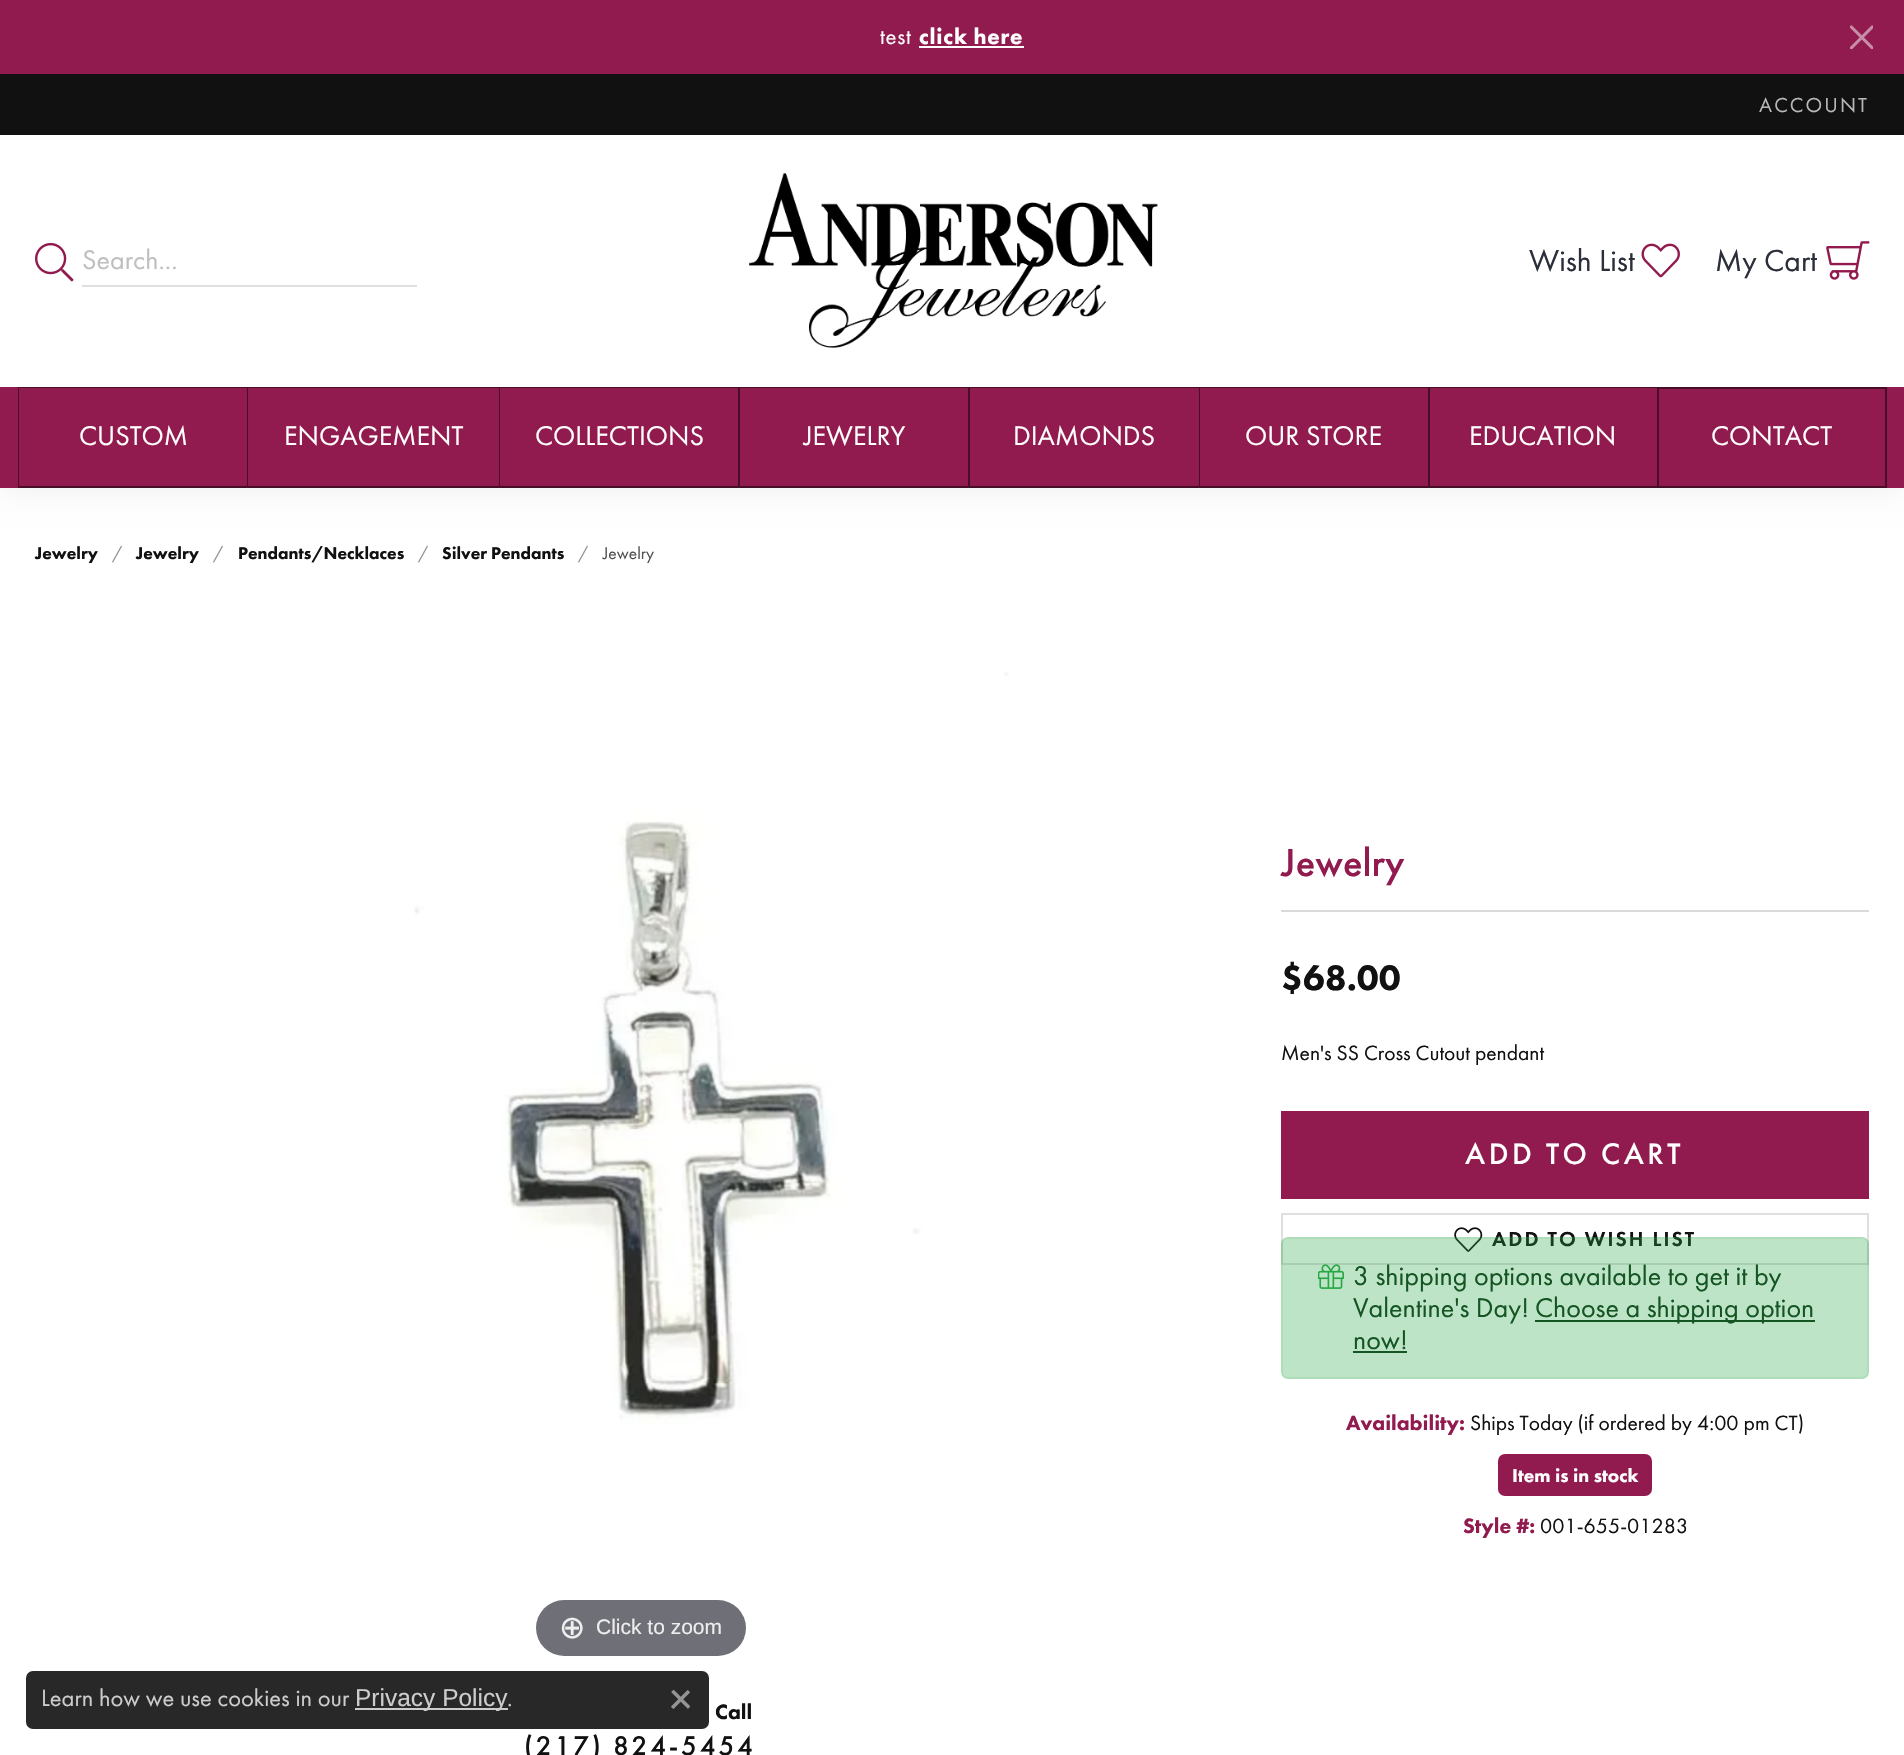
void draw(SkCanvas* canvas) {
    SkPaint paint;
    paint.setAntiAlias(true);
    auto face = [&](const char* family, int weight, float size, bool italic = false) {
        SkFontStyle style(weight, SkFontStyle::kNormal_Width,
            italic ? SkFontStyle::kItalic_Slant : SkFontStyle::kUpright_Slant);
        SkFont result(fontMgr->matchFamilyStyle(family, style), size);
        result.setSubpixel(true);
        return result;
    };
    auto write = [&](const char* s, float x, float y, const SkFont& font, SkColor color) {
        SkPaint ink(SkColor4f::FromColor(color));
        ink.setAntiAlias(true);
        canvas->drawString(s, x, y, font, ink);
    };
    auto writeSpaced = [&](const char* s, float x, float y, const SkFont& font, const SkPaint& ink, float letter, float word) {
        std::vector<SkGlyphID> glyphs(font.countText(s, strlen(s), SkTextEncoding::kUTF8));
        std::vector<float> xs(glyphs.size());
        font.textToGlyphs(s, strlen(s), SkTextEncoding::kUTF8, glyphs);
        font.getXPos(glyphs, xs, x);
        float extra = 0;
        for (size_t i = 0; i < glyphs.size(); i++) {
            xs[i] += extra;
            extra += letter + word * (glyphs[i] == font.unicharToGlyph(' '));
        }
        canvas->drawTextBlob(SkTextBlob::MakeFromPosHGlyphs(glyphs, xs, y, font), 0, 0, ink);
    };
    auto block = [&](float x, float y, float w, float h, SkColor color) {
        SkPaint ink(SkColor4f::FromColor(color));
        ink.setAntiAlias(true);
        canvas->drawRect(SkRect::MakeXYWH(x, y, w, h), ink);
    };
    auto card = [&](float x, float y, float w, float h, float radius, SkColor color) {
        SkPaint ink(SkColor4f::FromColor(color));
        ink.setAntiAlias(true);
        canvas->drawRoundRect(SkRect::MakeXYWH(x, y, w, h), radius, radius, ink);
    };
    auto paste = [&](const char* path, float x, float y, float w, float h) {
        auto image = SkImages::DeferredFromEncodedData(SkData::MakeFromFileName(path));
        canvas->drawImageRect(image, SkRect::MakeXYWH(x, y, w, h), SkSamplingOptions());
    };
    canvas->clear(SkColorSetRGB(145, 27, 78));
    auto kFont1 = face("Futura PT", 400, 22.75f);
    paint.setColor(SK_ColorWHITE);
    writeSpaced("test", 880, 44, kFont1, paint, 0.75f, 0);
    auto kFont2 = face("Futura PT", 900, 22.75f);
    writeSpaced("click here", 919, 44, kFont2, paint, 0.75f, 0);
    block(919, 46, 105, 2, SK_ColorWHITE);
    paste("pic1.png", 1850, 25, 23, 24);
    block(0, 74, 1904, 61, SkColorSetRGB(17, 17, 17));
    auto kFont3 = face("Futura PT", 400, 21);
    paint.setColor(SkColorSetRGB(184, 184, 184));
    writeSpaced("ACCOUNT", 1759, 112, kFont3, paint, 2.1f, 0);
    block(0, 488, 1904, 1267, SK_ColorWHITE);
    paint.setColor(SkColorSetARGB(18, 0, 0, 0));
    paint.setMaskFilter(SkMaskFilter::MakeBlur(kNormal_SkBlurStyle, 17.5f));
    canvas->drawRect(SkRect::MakeXYWH(0, 387, 1904, 101), paint);
    paint.setMaskFilter(nullptr);
    block(0, 135, 1904, 252, SK_ColorWHITE);
    paste("pic2.png", 35, 242, 39, 40);
    block(82, 285, 335, 2, SkColorSetRGB(224, 222, 222));
    auto kFont4 = face("Futura PT", 400, 28);
    write("Search...", 82, 269, kFont4, SkColorSetRGB(193, 190, 191));
    paste("pic3.png", 749, 173, 409, 175);
    auto kFont5 = face("Futura PT", 400, 31.5f);
    write("Wish List", 1529, 271, kFont5, SkColorSetRGB(43, 47, 58));
    paste("pic4.png", 1641, 243, 39, 35);
    write("My Cart", 1715, 271, kFont5, SkColorSetRGB(43, 47, 58));
    paste("pic5.png", 1826, 241, 44, 39);
    block(0, 387, 1904, 101, SkColorSetRGB(145, 27, 78));
    paint.setColor(SkColorSetRGB(73, 14, 39));
    canvas->drawPath(SkPathBuilder().moveTo(18, 387).lineTo(247, 387).lineTo(247, 388).lineTo(19, 388).close().detach(), paint);
    canvas->drawPath(SkPathBuilder().moveTo(247, 488).lineTo(18, 488).lineTo(19, 486).lineTo(247, 486).close().detach(), paint);
    paint.setColor(SkColorSetARGB(128, 0, 0, 0));
    canvas->drawPath(SkPathBuilder().moveTo(18, 488).lineTo(18, 387).lineTo(19, 388).lineTo(19, 486).close().detach(), paint);
    write("CUSTOM", 79, 445, kFont4, SK_ColorWHITE);
    paint.setColor(SkColorSetRGB(73, 14, 39));
    canvas->drawPath(SkPathBuilder().moveTo(247, 387).lineTo(499, 387).lineTo(499, 388).lineTo(248, 388).close().detach(), paint);
    canvas->drawPath(SkPathBuilder().moveTo(499, 488).lineTo(247, 488).lineTo(248, 486).lineTo(499, 486).close().detach(), paint);
    paint.setColor(SkColorSetARGB(128, 0, 0, 0));
    canvas->drawPath(SkPathBuilder().moveTo(247, 488).lineTo(247, 387).lineTo(248, 388).lineTo(248, 486).close().detach(), paint);
    write("ENGAGEMENT", 284, 445, kFont4, SK_ColorWHITE);
    paint.setColor(SkColorSetRGB(73, 14, 39));
    canvas->drawPath(SkPathBuilder().moveTo(499, 387).lineTo(738, 387).lineTo(738, 388).lineTo(500, 388).close().detach(), paint);
    canvas->drawPath(SkPathBuilder().moveTo(738, 488).lineTo(499, 488).lineTo(500, 486).lineTo(738, 486).close().detach(), paint);
    paint.setColor(SkColorSetARGB(128, 0, 0, 0));
    canvas->drawPath(SkPathBuilder().moveTo(499, 488).lineTo(499, 387).lineTo(500, 388).lineTo(500, 486).close().detach(), paint);
    write("COLLECTIONS", 535, 445, kFont4, SK_ColorWHITE);
    paint.setColor(SkColorSetRGB(73, 14, 39));
    canvas->drawPath(SkPathBuilder().moveTo(738, 387).lineTo(968, 387).lineTo(968, 388).lineTo(740, 388).close().detach(), paint);
    canvas->drawPath(SkPathBuilder().moveTo(968, 488).lineTo(738, 488).lineTo(740, 486).lineTo(968, 486).close().detach(), paint);
    paint.setColor(SkColorSetARGB(128, 0, 0, 0));
    canvas->drawPath(SkPathBuilder().moveTo(738, 488).lineTo(738, 387).lineTo(740, 388).lineTo(740, 486).close().detach(), paint);
    write("JEWELRY", 804, 445, kFont4, SK_ColorWHITE);
    paint.setColor(SkColorSetRGB(73, 14, 39));
    canvas->drawPath(SkPathBuilder().moveTo(968, 387).lineTo(1199, 387).lineTo(1199, 388).lineTo(970, 388).close().detach(), paint);
    canvas->drawPath(SkPathBuilder().moveTo(1199, 488).lineTo(968, 488).lineTo(970, 486).lineTo(1199, 486).close().detach(), paint);
    paint.setColor(SkColorSetARGB(128, 0, 0, 0));
    canvas->drawPath(SkPathBuilder().moveTo(968, 488).lineTo(968, 387).lineTo(970, 388).lineTo(970, 486).close().detach(), paint);
    write("DIAMONDS", 1013, 445, kFont4, SK_ColorWHITE);
    paint.setColor(SkColorSetRGB(73, 14, 39));
    canvas->drawPath(SkPathBuilder().moveTo(1199, 387).lineTo(1428, 387).lineTo(1428, 388).lineTo(1200, 388).close().detach(), paint);
    canvas->drawPath(SkPathBuilder().moveTo(1428, 488).lineTo(1199, 488).lineTo(1200, 486).lineTo(1428, 486).close().detach(), paint);
    paint.setColor(SkColorSetARGB(128, 0, 0, 0));
    canvas->drawPath(SkPathBuilder().moveTo(1199, 488).lineTo(1199, 387).lineTo(1200, 388).lineTo(1200, 486).close().detach(), paint);
    write("OUR STORE", 1245, 445, kFont4, SK_ColorWHITE);
    paint.setColor(SkColorSetRGB(73, 14, 39));
    canvas->drawPath(SkPathBuilder().moveTo(1428, 387).lineTo(1657, 387).lineTo(1657, 388).lineTo(1430, 388).close().detach(), paint);
    canvas->drawPath(SkPathBuilder().moveTo(1657, 488).lineTo(1428, 488).lineTo(1430, 486).lineTo(1657, 486).close().detach(), paint);
    paint.setColor(SkColorSetARGB(128, 0, 0, 0));
    canvas->drawPath(SkPathBuilder().moveTo(1428, 488).lineTo(1428, 387).lineTo(1430, 388).lineTo(1430, 486).close().detach(), paint);
    write("EDUCATION", 1469, 445, kFont4, SK_ColorWHITE);
    paint.setStyle(SkPaint::kStroke_Style);
    paint.setStrokeWidth(2);
    paint.setColor(SkColorSetRGB(73, 14, 39));
    canvas->drawRect(SkRect::MakeXYWH(1658, 388, 228, 99), paint);
    write("CONTACT", 1711, 445, kFont4, SK_ColorWHITE);
    auto kFont6 = face("Futura PT", 900, 17.5f);
    write("Jewelry", 35, 559, kFont6, SkColorSetRGB(17, 17, 17));
    auto kFont7 = face("Futura PT", 400, 17.5f);
    write("/", 112, 559, kFont7, SkColorSetRGB(149, 143, 144));
    write("Jewelry", 136, 559, kFont6, SkColorSetRGB(17, 17, 17));
    write("/", 213, 559, kFont7, SkColorSetRGB(149, 143, 144));
    write("Pendants/Necklaces", 238, 559, kFont6, SkColorSetRGB(17, 17, 17));
    write("/", 418, 559, kFont7, SkColorSetRGB(149, 143, 144));
    write("Silver Pendants", 442, 559, kFont6, SkColorSetRGB(17, 17, 17));
    write("/", 578, 559, kFont7, SkColorSetRGB(149, 143, 144));
    write("Jewelry", 603, 559, kFont7, SkColorSetRGB(81, 81, 81));
    auto kFont8 = face("Futura PT", 500, 40.5f);
    write("Jewelry", 1281, 876, kFont8, SkColorSetRGB(145, 27, 78));
    block(1281, 910, 588, 2, SkColorSetRGB(219, 218, 218));
    auto kFont9 = face("Futura PT", 900, 36.5f);
    write("$68.00", 1281, 990, kFont9, SkColorSetRGB(17, 17, 17));
    auto kFont10 = face("Futura PT", 400, 21.5f);
    write("Men's SS Cross Cutout pendant", 1281, 1060, kFont10, SkColorSetRGB(17, 17, 17));
    block(1281, 1111, 588, 88, SkColorSetRGB(145, 27, 78));
    auto kFont11 = face("Futura PT", 500, 30.75f);
    paint.setStyle(SkPaint::kFill_Style);
    paint.setColor(SK_ColorWHITE);
    writeSpaced("ADD TO CART", 1465, 1164, kFont11, paint, 3.5f, 0);
    paint.setStyle(SkPaint::kStroke_Style);
    paint.setColor(SkColorSetRGB(224, 222, 222));
    canvas->drawRect(SkRect::MakeXYWH(1282, 1214, 586, 50), paint);
    paste("pic6.png", 1454, 1227, 29, 25);
    auto kFont12 = face("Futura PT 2", 500, 21);
    paint.setStyle(SkPaint::kFill_Style);
    paint.setColor(SkColorSetRGB(17, 17, 17));
    writeSpaced("ADD TO WISH LIST", 1492, 1246, kFont12, paint, 2.1f, 0);
    card(1281, 1237, 588, 142, 7, SkColorSetARGB(77, 40, 167, 69));
    paint.setStyle(SkPaint::kStroke_Style);
    paint.setColor(SkColorSetARGB(26, 40, 167, 69));
    canvas->drawRoundRect(SkRect::MakeXYWH(1282, 1238, 586, 140), 6, 6, paint);
    paste("pic7.png", 1318, 1264, 26, 25);
    write("3 shipping options available to get it by", 1353, 1285, kFont4, SkColorSetRGB(20, 85, 35));
    write("Valentine's Day!", 1353, 1317, kFont4, SkColorSetRGB(20, 85, 35));
    block(1535, 1320, 280, 2, SkColorSetRGB(20, 85, 35));
    write("Choose a shipping option", 1535, 1317, kFont4, SkColorSetRGB(20, 85, 35));
    write("now!", 1353, 1349, kFont4, SkColorSetRGB(20, 85, 35));
    block(1353, 1351, 54, 2, SkColorSetRGB(20, 85, 35));
    auto kFont13 = face("Futura PT", 900, 21.5f);
    write("Availability:", 1346, 1430, kFont13, SkColorSetRGB(145, 27, 78));
    write("Ships Today (if ordered by 4:00 pm CT)", 1470, 1430, kFont10, SkColorSetRGB(17, 17, 17));
    card(1498, 1454, 154, 42, 7, SkColorSetRGB(145, 27, 78));
    auto kFont14 = face("Futura PT", 900, 19.25f);
    write("Item is in stock", 1512, 1482, kFont14, SK_ColorWHITE);
    write("Style #:", 1463, 1533, kFont13, SkColorSetRGB(145, 27, 78));
    write("001-655-01283", 1540, 1533, kFont10, SkColorSetRGB(17, 17, 17));
    paste("pic8.png", 414, 672, 595, 752);
    card(536, 1600, 210, 56, 28, SkColorSetRGB(111, 112, 119));
    auto kFont15 = face("DejaVu Sans", 400, 31.5f);
    write("⊕", 559, 1638, kFont15, SkColorSetRGB(238, 238, 238));
    auto kFont16 = face("Liberation Sans", 400, 21);
    write("Click to zoom", 596, 1634, kFont16, SkColorSetRGB(238, 238, 238));
    write("Call", 715, 1719, kFont13, SkColorSetRGB(17, 17, 17));
    auto kFont17 = face("Futura PT", 500, 28);
    paint.setStyle(SkPaint::kFill_Style);
    paint.setColor(SkColorSetRGB(17, 17, 17));
    writeSpaced("(217) 824-5454", 524, 1755, kFont17, paint, 2.75f, 0);
    card(26, 1671, 683, 58, 7, SkColorSetARGB(230, 17, 17, 17));
    auto kFont18 = face("Futura PT", 400, 24.5f);
    write("Learn how we use cookies in our", 41, 1706, kFont18, SkColorSetRGB(204, 204, 204));
    block(355, 1708, 153, 2, SkColorSetRGB(204, 204, 204));
    auto kFont19 = face("Liberation Sans", 400, 24.5f);
    write("Privacy Policy", 355, 1706, kFont19, SkColorSetRGB(204, 204, 204));
    write(".", 507, 1706, kFont18, SkColorSetRGB(204, 204, 204));
    paste("pic9.png", 671, 1690, 19, 19);
}
